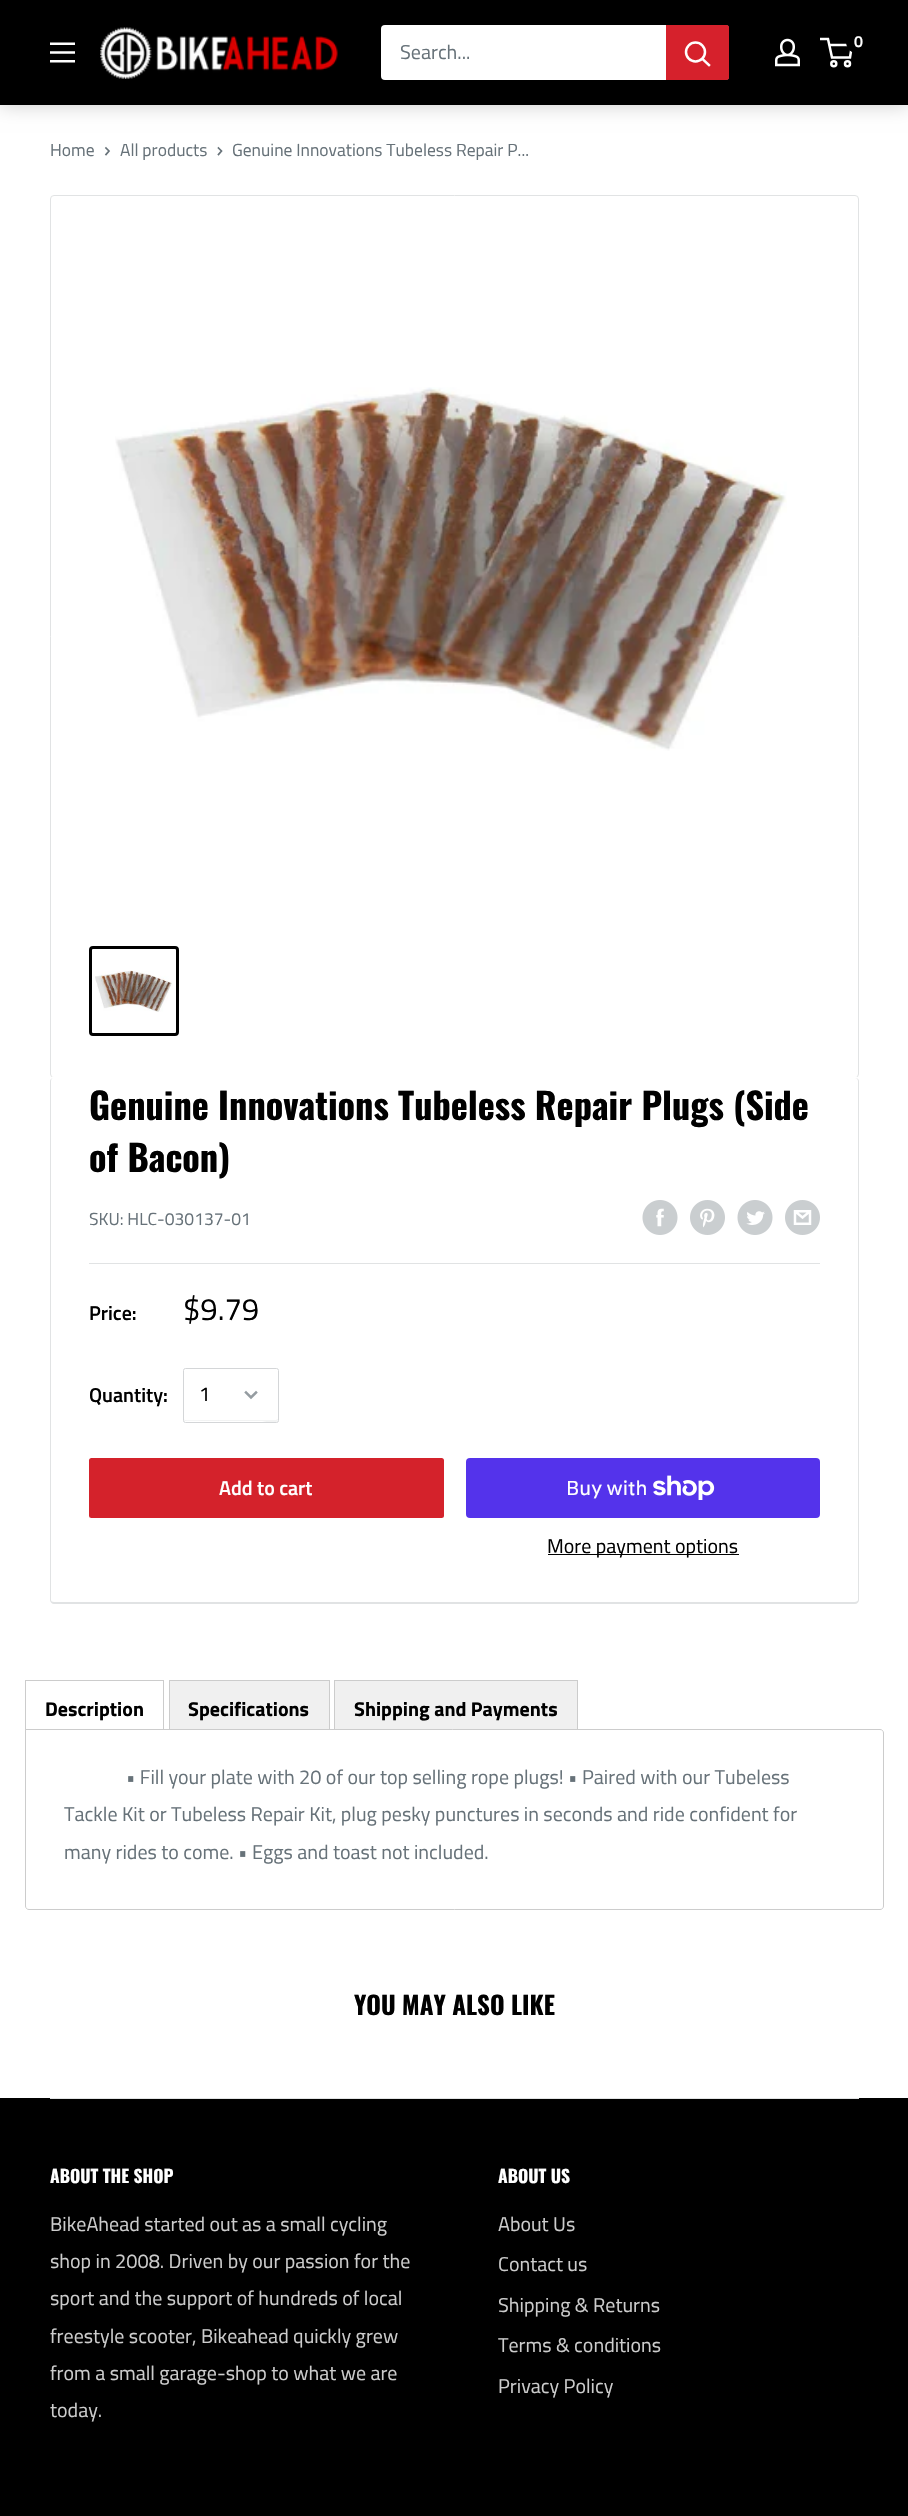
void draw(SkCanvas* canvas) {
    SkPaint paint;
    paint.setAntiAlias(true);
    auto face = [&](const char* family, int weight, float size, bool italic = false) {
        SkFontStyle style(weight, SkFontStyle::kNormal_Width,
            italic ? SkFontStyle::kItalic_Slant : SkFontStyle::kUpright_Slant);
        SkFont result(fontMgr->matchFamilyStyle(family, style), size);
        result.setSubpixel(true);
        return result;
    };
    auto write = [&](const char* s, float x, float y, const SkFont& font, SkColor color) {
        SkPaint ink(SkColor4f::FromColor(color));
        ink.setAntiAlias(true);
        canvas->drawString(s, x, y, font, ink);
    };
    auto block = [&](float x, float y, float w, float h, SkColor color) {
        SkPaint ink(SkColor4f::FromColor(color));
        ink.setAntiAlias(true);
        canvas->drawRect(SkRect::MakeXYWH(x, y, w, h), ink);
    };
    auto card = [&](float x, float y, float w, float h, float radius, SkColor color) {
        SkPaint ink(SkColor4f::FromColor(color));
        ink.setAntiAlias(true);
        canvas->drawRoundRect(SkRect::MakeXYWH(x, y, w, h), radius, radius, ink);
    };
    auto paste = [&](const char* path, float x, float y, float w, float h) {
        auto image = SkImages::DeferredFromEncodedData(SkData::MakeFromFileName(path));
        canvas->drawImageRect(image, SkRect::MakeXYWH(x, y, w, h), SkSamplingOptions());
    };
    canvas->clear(SK_ColorWHITE);
    paint.setColor(SkColorSetARGB(51, 0, 0, 0));
    paint.setMaskFilter(SkMaskFilter::MakeBlur(kNormal_SkBlurStyle, 9.5f));
    canvas->drawRect(SkRect::MakeXYWH(0, 0, 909, 105), paint);
    paint.setMaskFilter(nullptr);
    block(0, 0, 908, 105, SK_ColorBLACK);
    paste("pic1.png", 50, 42, 25, 21);
    paste("pic2.png", 100, 27, 238, 52);
    card(381, 25, 348, 55, 4, SK_ColorWHITE);
    auto kFont1 = face("Titillium Web", 400, 20);
    write("Search...", 400, 59, kFont1, SkColorSetRGB(103, 114, 121));
    paint.setColor(SkColorSetRGB(214, 33, 44));
    canvas->drawPath(SkPathBuilder().moveTo(666, 25).lineTo(726.5f, 25).cubicTo(728, 25, 729, 26, 729, 27.5f).lineTo(729, 77.5f).cubicTo(729, 79, 728, 80, 726.5f, 80).lineTo(666, 80).close().detach(), paint);
    paint.setStyle(SkPaint::kStroke_Style);
    paint.setStrokeWidth(2.5f);
    paint.setStrokeCap(SkPaint::kSquare_Cap);
    paint.setColor(SK_ColorWHITE);
    canvas->drawPath(SkPathBuilder().moveTo(709, 65).lineTo(702.5f, 59).detach(), paint);
    paint.setStrokeCap(SkPaint::kButt_Cap);
    canvas->drawCircle(695.5f, 52, 9.5f, paint);
    paste("pic3.png", 775, 38, 25, 29);
    canvas->drawCircle(833.8f, 63.8f, 2.5f, paint);
    canvas->drawCircle(847.5f, 63.8f, 2.5f, paint);
    canvas->drawPath(SkPathBuilder().moveTo(829, 45).lineTo(852, 45).lineTo(850, 57.5f).lineTo(832, 57.5f).lineTo(828, 39).lineTo(820, 39).detach(), paint);
    paint.setStyle(SkPaint::kFill_Style);
    paint.setColor(SK_ColorBLACK);
    canvas->drawCircle(858.5f, 41.5f, 12.5f, paint);
    auto kFont2 = face("Titillium Web", 600, 16);
    write("0", 854, 47, kFont2, SK_ColorWHITE);
    auto kFont3 = face("Titillium Web", 400, 17.5f);
    write("Home", 50, 156, kFont3, SkColorSetRGB(103, 114, 121));
    paint.setStyle(SkPaint::kStroke_Style);
    paint.setStrokeWidth(1.7f);
    paint.setStrokeCap(SkPaint::kSquare_Cap);
    paint.setColor(SkColorSetRGB(103, 114, 121));
    canvas->drawPath(SkPathBuilder().moveTo(106, 148).lineTo(109, 151).lineTo(106, 154.5f).detach(), paint);
    write("All products", 120, 156, kFont3, SkColorSetRGB(103, 114, 121));
    canvas->drawPath(SkPathBuilder().moveTo(218.5f, 148).lineTo(221.5f, 151).lineTo(218.5f, 154.5f).detach(), paint);
    write("Genuine Innovations Tubeless Repair P...", 232, 156, kFont3, SkColorSetRGB(103, 114, 121));
    paint.setStrokeWidth(1);
    paint.setStrokeCap(SkPaint::kButt_Cap);
    paint.setColor(SkColorSetRGB(225, 227, 228));
    canvas->drawRoundRect(SkRect::MakeXYWH(50.5f, 195.5f, 808, 882), 3.5f, 3.5f, paint);
    paste("pic4.png", 115, 387, 672, 364);
    paint.setStrokeWidth(3);
    paint.setColor(SK_ColorBLACK);
    canvas->drawRoundRect(SkRect::MakeXYWH(90.5f, 947.5f, 87, 87), 2.5f, 2.5f, paint);
    paste("pic5.png", 95, 970, 78, 42);
    paint.setStyle(SkPaint::kFill_Style);
    paint.setColor(SK_ColorWHITE);
    canvas->drawPath(SkPathBuilder().moveTo(54, 1076).cubicTo(51, 1076, 50, 1079, 50, 1081).cubicTo(50, 1079, 52, 1078, 54, 1078).lineTo(855, 1078).cubicTo(857, 1078, 859, 1079, 859, 1081).lineTo(859, 1600).lineTo(859, 1080).cubicTo(859, 1078, 857, 1076, 855, 1076).close().detach(), paint);
    paint.setColor(SkColorSetRGB(225, 227, 228));
    canvas->drawPath(SkPathBuilder(SkPathFillType::kEvenOdd).moveTo(54, 1078).lineTo(855, 1078).cubicTo(857, 1078, 859, 1079, 859, 1081).lineTo(859, 1600).cubicTo(859, 1602, 857, 1604, 855, 1604).lineTo(54, 1604).cubicTo(52, 1604, 50, 1602, 50, 1600).lineTo(50, 1081).cubicTo(50, 1079, 52, 1078, 54, 1078).close().moveTo(54, 1078).lineTo(855, 1078).cubicTo(856, 1078, 858, 1079, 858, 1081).lineTo(858, 1600).cubicTo(858, 1601, 856, 1602, 855, 1602).lineTo(54, 1602).cubicTo(52, 1602, 51, 1601, 51, 1600).lineTo(51, 1081).cubicTo(51, 1079, 52, 1078, 54, 1078).close().detach(), paint);
    auto kFont4 = face("Oswald", 700, 36.25f);
    write("Genuine Innovations Tubeless Repair Plugs (Side", 89, 1120, kFont4, SK_ColorBLACK);
    write("of Bacon)", 89, 1172, kFont4, SK_ColorBLACK);
    write("SKU: HLC-030137-01", 89, 1225, kFont3, SkColorSetRGB(103, 114, 121));
    paste("pic6.png", 642, 1200, 36, 35);
    paste("pic7.png", 690, 1200, 35, 35);
    paste("pic8.png", 737, 1200, 36, 35);
    paste("pic9.png", 785, 1200, 35, 35);
    block(89, 1263, 731, 1, SkColorSetRGB(225, 227, 228));
    auto kFont5 = face("Titillium Web", 600, 20);
    write("Price:", 89, 1320, kFont5, SK_ColorBLACK);
    auto kFont6 = face("Titillium Web", 400, 31);
    write("$9.79", 183, 1320, kFont6, SK_ColorBLACK);
    write("Quantity:", 89, 1402, kFont5, SK_ColorBLACK);
    paint.setColor(SkColorSetRGB(242, 243, 243));
    canvas->drawPath(SkPathBuilder().moveTo(184, 1419).cubicTo(184, 1420, 184, 1421, 185, 1421).lineTo(262, 1421).cubicTo(263, 1421, 278, 1426, 278, 1419).lineTo(276, 1420).lineTo(215, 1420).cubicTo(187, 1420, 184, 1421, 184, 1419).close().detach(), paint);
    paint.setStyle(SkPaint::kStroke_Style);
    paint.setStrokeWidth(1);
    paint.setColor(SkColorSetRGB(212, 214, 216));
    canvas->drawRoundRect(SkRect::MakeXYWH(183.5f, 1368.5f, 95, 54), 2, 2, paint);
    write("1", 199, 1401, kFont1, SK_ColorBLACK);
    paint.setStrokeWidth(2.5f);
    paint.setStrokeCap(SkPaint::kSquare_Cap);
    paint.setColor(SkColorSetRGB(149, 156, 161));
    canvas->drawPath(SkPathBuilder().moveTo(256, 1392.5f).lineTo(251, 1397.5f).lineTo(246, 1392.5f).detach(), paint);
    card(89, 1458, 355, 60, 2.5f, SkColorSetRGB(212, 34, 43));
    write("Add to cart", 219, 1495, kFont5, SK_ColorWHITE);
    card(466, 1458, 354, 60, 4, SkColorSetRGB(84, 51, 235));
    auto kFont7 = face("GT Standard", 400, 20);
    write("Buy with", 566, 1495, kFont7, SK_ColorWHITE);
    paste("pic10.png", 653, 1475, 62, 25);
    block(548, 1554, 191, 1, SK_ColorBLACK);
    write("More payment options", 547, 1553, kFont1, SK_ColorBLACK);
    auto kFont8 = face("Titillium Web", 700, 20);
    write("Description", 45, 1716, kFont8, SK_ColorBLACK);
    block(25, 1680, 139, 1, SkColorSetRGB(204, 204, 204));
    block(163, 1680, 1, 56, SkColorSetRGB(204, 204, 204));
    block(25, 1680, 1, 56, SkColorSetRGB(204, 204, 204));
    block(170, 1681, 159, 48, SkColorSetRGB(240, 240, 240));
    paint.setStrokeWidth(1);
    paint.setStrokeCap(SkPaint::kButt_Cap);
    paint.setColor(SkColorSetRGB(204, 204, 204));
    canvas->drawRect(SkRect::MakeXYWH(169.5f, 1680.5f, 160, 57), paint);
    write("Specifications", 188, 1716, kFont8, SK_ColorBLACK);
    block(335, 1681, 242, 48, SkColorSetRGB(240, 240, 240));
    canvas->drawRect(SkRect::MakeXYWH(334.5f, 1680.5f, 243, 57), paint);
    write("Shipping and Payments", 354, 1716, kFont8, SK_ColorBLACK);
    paint.setStyle(SkPaint::kFill_Style);
    paint.setColor(SK_ColorWHITE);
    canvas->drawPath(SkPathBuilder().moveTo(25.5f, 1729.5f).lineTo(880, 1729.5f).cubicTo(882, 1729.5f, 883.5f, 1731, 883.5f, 1733).lineTo(883.5f, 1906).cubicTo(883.5f, 1908, 882, 1909.5f, 880, 1909.5f).lineTo(29, 1909.5f).cubicTo(27, 1909.5f, 25.5f, 1908, 25.5f, 1906).close().detach(), paint);
    paint.setStyle(SkPaint::kStroke_Style);
    paint.setColor(SkColorSetRGB(204, 204, 204));
    canvas->drawPath(SkPathBuilder().moveTo(25.5f, 1729.5f).lineTo(880, 1729.5f).cubicTo(882, 1729.5f, 883.5f, 1731, 883.5f, 1733).lineTo(883.5f, 1906).cubicTo(883.5f, 1908, 882, 1909.5f, 880, 1909.5f).lineTo(29, 1909.5f).cubicTo(27, 1909.5f, 25.5f, 1908, 25.5f, 1906).close().detach(), paint);
    write("• Fill your plate with 20 of our top selling rope plugs! • Paired with our Tubeless", 126, 1784, kFont1, SkColorSetRGB(103, 114, 121));
    write("Tackle Kit or Tubeless Repair Kit, plug pesky punctures in seconds and ride confident for", 64, 1821, kFont1, SkColorSetRGB(103, 114, 121));
    write("many rides to come. • Eggs and toast not included.", 64, 1859, kFont1, SkColorSetRGB(103, 114, 121));
    auto kFont9 = face("Oswald", 700, 25);
    write("YOU MAY ALSO LIKE", 354, 2015, kFont9, SK_ColorBLACK);
    block(0, 2098, 908, 418, SK_ColorBLACK);
    block(50, 2098, 809, 1, SkColorSetRGB(225, 227, 228));
    auto kFont10 = face("Oswald", 700, 17.5f);
    write("ABOUT THE SHOP", 50, 2183, kFont10, SK_ColorWHITE);
    write("BikeAhead started out as a small cycling", 50, 2231, kFont1, SkColorSetRGB(204, 204, 204));
    write("shop in 2008. Driven by our passion for the", 50, 2268, kFont1, SkColorSetRGB(204, 204, 204));
    write("sport and the support of hundreds of local", 50, 2305, kFont1, SkColorSetRGB(204, 204, 204));
    write("freestyle scooter, Bikeahead quickly grew", 50, 2343, kFont1, SkColorSetRGB(204, 204, 204));
    write("from a small garage-shop to what we are", 50, 2380, kFont1, SkColorSetRGB(204, 204, 204));
    write("today.", 50, 2417, kFont1, SkColorSetRGB(204, 204, 204));
    write("ABOUT US", 498, 2183, kFont10, SK_ColorWHITE);
    write("About Us", 498, 2231, kFont1, SkColorSetRGB(204, 204, 204));
    write("Contact us", 498, 2271, kFont1, SkColorSetRGB(204, 204, 204));
    write("Shipping & Returns", 498, 2312, kFont1, SkColorSetRGB(204, 204, 204));
    write("Terms & conditions", 498, 2352, kFont1, SkColorSetRGB(204, 204, 204));
    write("Privacy Policy", 498, 2393, kFont1, SkColorSetRGB(204, 204, 204));
}
